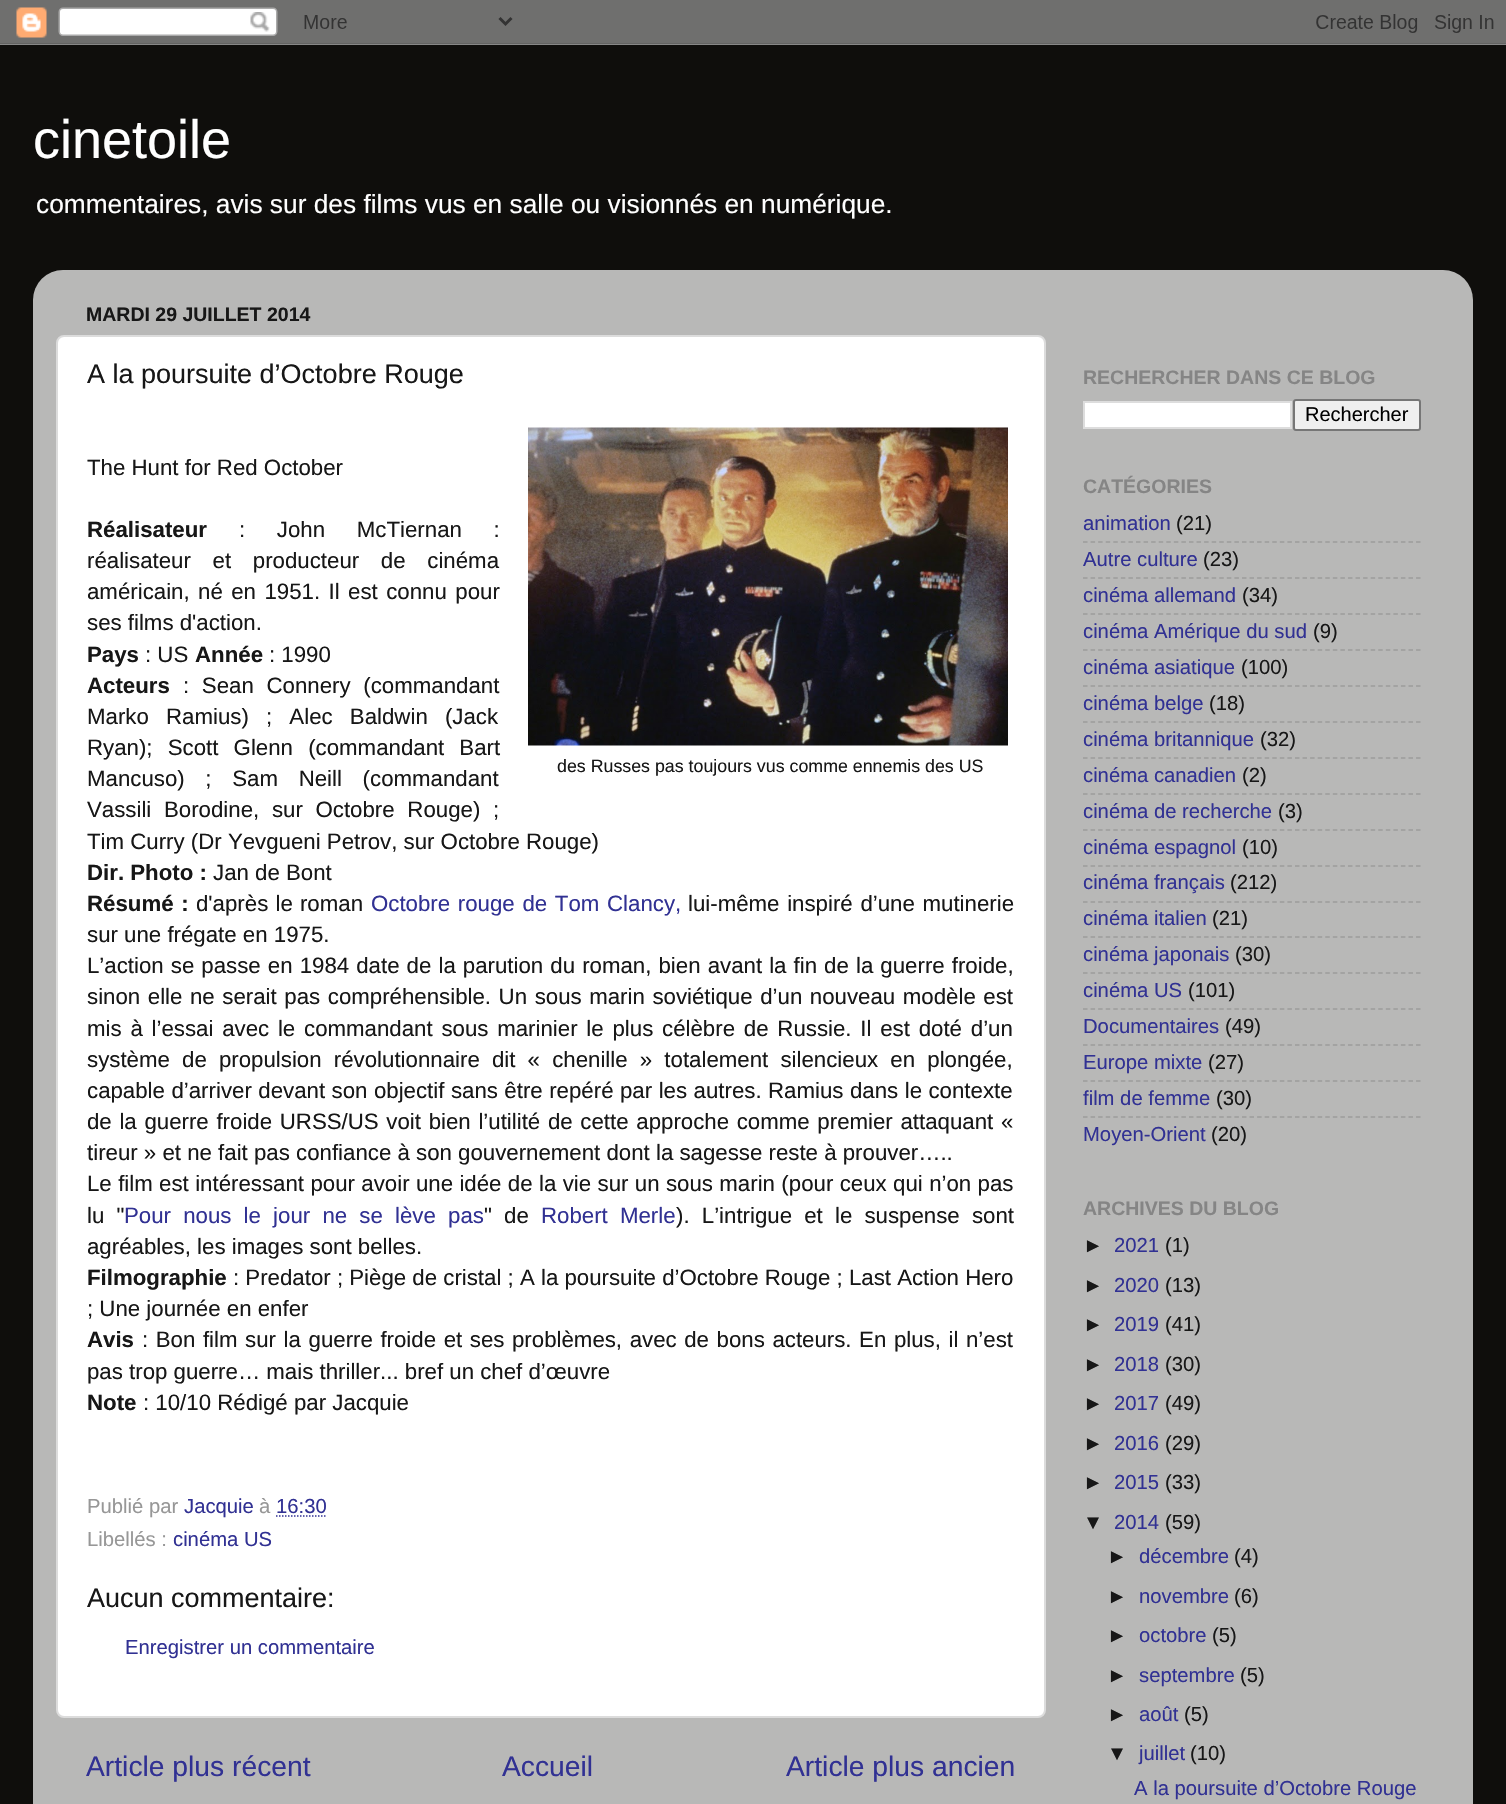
void draw(SkCanvas* canvas) {
    SkPaint paint;
    paint.setAntiAlias(true);
    auto face = [&](const char* family, int weight, float size, bool italic = false) {
        SkFontStyle style(weight, SkFontStyle::kNormal_Width,
            italic ? SkFontStyle::kItalic_Slant : SkFontStyle::kUpright_Slant);
        SkFont result(fontMgr->matchFamilyStyle(family, style), size);
        result.setSubpixel(true);
        return result;
    };
    auto write = [&](const char* s, float x, float y, const SkFont& font, SkColor color) {
        SkPaint ink(SkColor4f::FromColor(color));
        ink.setAntiAlias(true);
        canvas->drawString(s, x, y, font, ink);
    };
    auto writeSpaced = [&](const char* s, float x, float y, const SkFont& font, const SkPaint& ink, float letter, float word) {
        std::vector<SkGlyphID> glyphs(font.countText(s, strlen(s), SkTextEncoding::kUTF8));
        std::vector<float> xs(glyphs.size());
        font.textToGlyphs(s, strlen(s), SkTextEncoding::kUTF8, glyphs);
        font.getXPos(glyphs, xs, x);
        float extra = 0;
        for (size_t i = 0; i < glyphs.size(); i++) {
            xs[i] += extra;
            extra += letter + word * (glyphs[i] == font.unicharToGlyph(' '));
        }
        canvas->drawTextBlob(SkTextBlob::MakeFromPosHGlyphs(glyphs, xs, y, font), 0, 0, ink);
    };
    auto paste = [&](const char* path, float x, float y, float w, float h) {
        auto image = SkImages::DeferredFromEncodedData(SkData::MakeFromFileName(path));
        canvas->drawImageRect(image, SkRect::MakeXYWH(x, y, w, h), SkSamplingOptions());
    };
    canvas->clear(SkColorSetRGB(15, 14, 12));
    paste("pic1.png", 0, 0, 1506, 45);
    auto kFont1 = face("Liberation Sans", 400, 54);
    write("cinetoile", 33, 158, kFont1, SK_ColorWHITE);
    auto kFont2 = face("Liberation Sans", 400, 26.3f);
    write("commentaires, avis sur des films vus en salle ou visionnés en numérique.", 36, 213, kFont2, SK_ColorWHITE);
    paste("pic2.png", 33, 270, 1440, 1534);
    auto kFont3 = face("Liberation Sans", 700, 19.5f);
    write("MARDI 29 JUILLET 2014", 86, 321, kFont3, SkColorSetRGB(23, 23, 23));
    paint.setColor(SK_ColorWHITE);
    canvas->drawRoundRect(SkRect::MakeXYWH(57, 336, 988, 1381), 7, 7, paint);
    paint.setStyle(SkPaint::kStroke_Style);
    paint.setStrokeWidth(2);
    paint.setColor(SkColorSetRGB(220, 220, 220));
    canvas->drawRoundRect(SkRect::MakeXYWH(57, 336, 988, 1381), 7, 7, paint);
    auto kFont4 = face("Liberation Sans", 400, 27);
    write("A la poursuite d’Octobre Rouge", 87, 383, kFont4, SkColorSetRGB(23, 23, 23));
    auto kFont5 = face("Liberation Sans", 400, 22.25f);
    write("The Hunt for Red October", 87, 475, kFont5, SkColorSetRGB(23, 23, 23));
    auto kFont6 = face("Liberation Sans", 700, 22.25f);
    write("Réalisateur", 87, 537, kFont6, SkColorSetRGB(23, 23, 23));
    paint.setStyle(SkPaint::kFill_Style);
    paint.setColor(SkColorSetRGB(23, 23, 23));
    writeSpaced(": John McTiernan :", 239, 537, kFont5, paint, 0, 25.5f);
    writeSpaced("réalisateur et producteur de cinéma", 87, 568, kFont5, paint, 0, 15.5f);
    writeSpaced("américain, né en 1951. Il est connu pour", 87, 599, kFont5, paint, 0, 2.25f);
    write("ses films d'action.", 87, 630, kFont5, SkColorSetRGB(23, 23, 23));
    write("Pays", 87, 662, kFont6, SkColorSetRGB(23, 23, 23));
    write(": US", 145, 662, kFont5, SkColorSetRGB(23, 23, 23));
    write("Année", 195, 662, kFont6, SkColorSetRGB(23, 23, 23));
    write(": 1990", 269, 662, kFont5, SkColorSetRGB(23, 23, 23));
    write("Acteurs", 87, 693, kFont6, SkColorSetRGB(23, 23, 23));
    writeSpaced(": Sean Connery (commandant", 183, 693, kFont5, paint, 0, 6.5f);
    writeSpaced("Marko Ramius) ; Alec Baldwin (Jack", 87, 724, kFont5, paint, 0, 11);
    writeSpaced("Ryan); Scott Glenn (commandant Bart", 87, 755, kFont5, paint, 0, 9);
    writeSpaced("Mancuso) ; Sam Neill (commandant", 87, 786, kFont5, paint, 0, 14.5f);
    writeSpaced("Vassili Borodine, sur Octobre Rouge) ;", 87, 817, kFont5, paint, 0, 6.5f);
    write("Tim Curry (Dr Yevgueni Petrov, sur Octobre Rouge)", 87, 849, kFont5, SkColorSetRGB(23, 23, 23));
    write("Dir. Photo :", 87, 880, kFont6, SkColorSetRGB(23, 23, 23));
    write("Jan de Bont", 213, 880, kFont5, SkColorSetRGB(23, 23, 23));
    writeSpaced("Résumé :", 87, 911, kFont6, paint, 0, 1.5f);
    writeSpaced("d'après le roman", 196, 911, kFont5, paint, 0, 1);
    paint.setColor(SkColorSetRGB(49, 49, 147));
    writeSpaced("Octobre rouge de Tom Clancy,", 371, 911, kFont5, paint, 0, 1.5f);
    paint.setColor(SkColorSetRGB(23, 23, 23));
    writeSpaced("lui-même inspiré d’une mutinerie", 688, 911, kFont5, paint, 0, 1.5f);
    write("sur une frégate en 1975.", 87, 942, kFont5, SkColorSetRGB(23, 23, 23));
    writeSpaced("L’action se passe en 1984 date de la parution du roman, bien avant la fin de la guerre froide,", 87, 973, kFont5, paint, 0, 0.9f);
    writeSpaced("sinon elle ne serait pas compréhensible. Un sous marin soviétique d’un nouveau modèle est", 87, 1004, kFont5, paint, 0, 1.4f);
    writeSpaced("mis à l’essai avec le commandant sous marinier le plus célèbre de Russie. Il est doté d’un", 87, 1036, kFont5, paint, 0, 2.6f);
    writeSpaced("système de propulsion révolutionnaire dit « chenille » totalement silencieux en plongée,", 87, 1067, kFont5, paint, 0, 6);
    writeSpaced("capable d’arriver devant son objectif sans être repéré par les autres. Ramius dans le contexte", 87, 1098, kFont5, paint, 0, 0.3f);
    writeSpaced("de la guerre froide URSS/US voit bien l’utilité de cette approche comme premier attaquant «", 87, 1129, kFont5, paint, 0, 1.5f);
    write("tireur » et ne fait pas confiance à son gouvernement dont la sagesse reste à prouver…..", 87, 1160, kFont5, SkColorSetRGB(23, 23, 23));
    writeSpaced("Le film est intéressant pour avoir une idée de la vie sur un sous marin (pour ceux qui n’on pas", 87, 1191, kFont5, paint, 0, 0.2f);
    writeSpaced("lu \"", 87, 1223, kFont5, paint, 0, 6);
    paint.setColor(SkColorSetRGB(49, 49, 147));
    writeSpaced("Pour nous le jour ne se lève pas", 124, 1223, kFont5, paint, 0, 6);
    paint.setColor(SkColorSetRGB(23, 23, 23));
    writeSpaced("\" de", 484, 1223, kFont5, paint, 0, 6);
    paint.setColor(SkColorSetRGB(49, 49, 147));
    writeSpaced("Robert Merle", 541, 1223, kFont5, paint, 0, 6);
    paint.setColor(SkColorSetRGB(23, 23, 23));
    writeSpaced("). L’intrigue et le suspense sont", 676, 1223, kFont5, paint, 0, 6);
    write("agréables, les images sont belles.", 87, 1254, kFont5, SkColorSetRGB(23, 23, 23));
    write("Filmographie", 87, 1285, kFont6, SkColorSetRGB(23, 23, 23));
    write(": Predator ; Piège de cristal ; A la poursuite d’Octobre Rouge ; Last Action Hero", 233, 1285, kFont5, SkColorSetRGB(23, 23, 23));
    write("; Une journée en enfer", 87, 1316, kFont5, SkColorSetRGB(23, 23, 23));
    paste("pic3.png", 528, 427, 480, 319);
    auto kFont7 = face("Liberation Sans", 400, 17.8f);
    write("des Russes pas toujours vus comme ennemis des US", 557, 772, kFont7, SkColorSetRGB(23, 23, 23));
    write("Avis", 87, 1347, kFont6, SkColorSetRGB(23, 23, 23));
    writeSpaced(": Bon film sur la guerre froide et ses problèmes, avec de bons acteurs. En plus, il n’est", 142, 1347, kFont5, paint, 0, 1.4f);
    write("pas trop guerre… mais thriller... bref un chef d’œuvre", 87, 1379, kFont5, SkColorSetRGB(23, 23, 23));
    write("Note", 87, 1410, kFont6, SkColorSetRGB(23, 23, 23));
    write(": 10/10 Rédigé par Jacquie", 143, 1410, kFont5, SkColorSetRGB(23, 23, 23));
    auto kFont8 = face("Liberation Sans", 400, 20.25f);
    write("Publié par", 87, 1513, kFont8, SkColorSetRGB(151, 151, 151));
    write("Jacquie", 184, 1513, kFont8, SkColorSetRGB(49, 49, 147));
    write("à", 259, 1513, kFont8, SkColorSetRGB(151, 151, 151));
    write("16:30", 276, 1513, kFont8, SkColorSetRGB(49, 49, 147));
    paint.setStyle(SkPaint::kStroke_Style);
    paint.setStrokeWidth(1.5f);
    paint.setColor(SkColorSetRGB(49, 49, 147));
    paint.setPathEffect(SkDashPathEffect::Make({{1.5f, 1.5f}}, 0));
    canvas->drawPath(SkPathBuilder().moveTo(276, 1516).lineTo(327, 1516).detach(), paint);
    paint.setPathEffect(nullptr);
    write("Libellés :", 87, 1546, kFont8, SkColorSetRGB(151, 151, 151));
    write("cinéma US", 173, 1546, kFont8, SkColorSetRGB(49, 49, 147));
    write("Aucun commentaire:", 87, 1607, kFont4, SkColorSetRGB(23, 23, 23));
    write("Enregistrer un commentaire", 125, 1654, kFont8, SkColorSetRGB(49, 49, 147));
    auto kFont9 = face("Liberation Sans", 400, 28.25f);
    write("Article plus récent", 86, 1776, kFont9, SkColorSetRGB(49, 49, 147));
    write("Accueil", 502, 1776, kFont9, SkColorSetRGB(49, 49, 147));
    write("Article plus ancien", 786, 1776, kFont9, SkColorSetRGB(49, 49, 147));
    write("RECHERCHER DANS CE BLOG", 1083, 384, kFont3, SkColorSetRGB(133, 133, 133));
    paint.setStyle(SkPaint::kFill_Style);
    paint.setColor(SK_ColorWHITE);
    canvas->drawRect(SkRect::MakeXYWH(1084, 402, 207, 26), paint);
    paint.setStyle(SkPaint::kStroke_Style);
    paint.setStrokeWidth(2);
    paint.setColor(SkColorSetRGB(221, 221, 221));
    canvas->drawRect(SkRect::MakeXYWH(1084, 402, 207, 26), paint);
    paint.setStyle(SkPaint::kFill_Style);
    paint.setColor(SkColorSetRGB(239, 239, 239));
    canvas->drawRoundRect(SkRect::MakeXYWH(1294, 400, 126, 30), 2, 2, paint);
    paint.setStyle(SkPaint::kStroke_Style);
    paint.setColor(SkColorSetRGB(118, 118, 118));
    canvas->drawRoundRect(SkRect::MakeXYWH(1294, 400, 126, 30), 2, 2, paint);
    auto kFont10 = face("Liberation Sans", 400, 20);
    write("Rechercher", 1305, 421, kFont10, SK_ColorBLACK);
    write("CATÉGORIES", 1083, 493, kFont3, SkColorSetRGB(133, 133, 133));
    write("animation", 1083, 530, kFont8, SkColorSetRGB(49, 49, 147));
    write("(21)", 1176, 530, kFont8, SkColorSetRGB(23, 23, 23));
    paint.setStrokeWidth(1.5f);
    paint.setColor(SkColorSetRGB(156, 156, 155));
    paint.setPathEffect(SkDashPathEffect::Make({{4.5f, 3.07f}}, 0));
    canvas->drawPath(SkPathBuilder().moveTo(1083, 542).lineTo(1420.5f, 542).detach(), paint);
    paint.setPathEffect(nullptr);
    write("Autre culture", 1083, 566, kFont8, SkColorSetRGB(49, 49, 147));
    write("(23)", 1203, 566, kFont8, SkColorSetRGB(23, 23, 23));
    paint.setPathEffect(SkDashPathEffect::Make({{4.5f, 3.07f}}, 0));
    canvas->drawPath(SkPathBuilder().moveTo(1083, 578).lineTo(1420.5f, 578).detach(), paint);
    paint.setPathEffect(nullptr);
    write("cinéma allemand", 1083, 602, kFont8, SkColorSetRGB(49, 49, 147));
    write("(34)", 1242, 602, kFont8, SkColorSetRGB(23, 23, 23));
    paint.setPathEffect(SkDashPathEffect::Make({{4.5f, 3.07f}}, 0));
    canvas->drawPath(SkPathBuilder().moveTo(1083, 614).lineTo(1420.5f, 614).detach(), paint);
    paint.setPathEffect(nullptr);
    write("cinéma Amérique du sud", 1083, 638, kFont8, SkColorSetRGB(49, 49, 147));
    write("(9)", 1313, 638, kFont8, SkColorSetRGB(23, 23, 23));
    paint.setPathEffect(SkDashPathEffect::Make({{4.5f, 3.07f}}, 0));
    canvas->drawPath(SkPathBuilder().moveTo(1083, 650).lineTo(1420.5f, 650).detach(), paint);
    paint.setPathEffect(nullptr);
    write("cinéma asiatique", 1083, 674, kFont8, SkColorSetRGB(49, 49, 147));
    write("(100)", 1241, 674, kFont8, SkColorSetRGB(23, 23, 23));
    paint.setPathEffect(SkDashPathEffect::Make({{4.5f, 3.07f}}, 0));
    canvas->drawPath(SkPathBuilder().moveTo(1083, 686).lineTo(1420.5f, 686).detach(), paint);
    paint.setPathEffect(nullptr);
    write("cinéma belge", 1083, 710, kFont8, SkColorSetRGB(49, 49, 147));
    write("(18)", 1209, 710, kFont8, SkColorSetRGB(23, 23, 23));
    paint.setPathEffect(SkDashPathEffect::Make({{4.5f, 3.07f}}, 0));
    canvas->drawPath(SkPathBuilder().moveTo(1083, 722).lineTo(1420.5f, 722).detach(), paint);
    paint.setPathEffect(nullptr);
    write("cinéma britannique", 1083, 746, kFont8, SkColorSetRGB(49, 49, 147));
    write("(32)", 1260, 746, kFont8, SkColorSetRGB(23, 23, 23));
    paint.setPathEffect(SkDashPathEffect::Make({{4.5f, 3.07f}}, 0));
    canvas->drawPath(SkPathBuilder().moveTo(1083, 758).lineTo(1420.5f, 758).detach(), paint);
    paint.setPathEffect(nullptr);
    write("cinéma canadien", 1083, 782, kFont8, SkColorSetRGB(49, 49, 147));
    write("(2)", 1242, 782, kFont8, SkColorSetRGB(23, 23, 23));
    paint.setPathEffect(SkDashPathEffect::Make({{4.5f, 3.07f}}, 0));
    canvas->drawPath(SkPathBuilder().moveTo(1083, 794).lineTo(1420.5f, 794).detach(), paint);
    paint.setPathEffect(nullptr);
    write("cinéma de recherche", 1083, 818, kFont8, SkColorSetRGB(49, 49, 147));
    write("(3)", 1278, 818, kFont8, SkColorSetRGB(23, 23, 23));
    paint.setPathEffect(SkDashPathEffect::Make({{4.5f, 3.07f}}, 0));
    canvas->drawPath(SkPathBuilder().moveTo(1083, 830).lineTo(1420.5f, 830).detach(), paint);
    paint.setPathEffect(nullptr);
    write("cinéma espagnol", 1083, 854, kFont8, SkColorSetRGB(49, 49, 147));
    write("(10)", 1242, 854, kFont8, SkColorSetRGB(23, 23, 23));
    paint.setPathEffect(SkDashPathEffect::Make({{4.5f, 3.07f}}, 0));
    canvas->drawPath(SkPathBuilder().moveTo(1083, 866).lineTo(1420.5f, 866).detach(), paint);
    paint.setPathEffect(nullptr);
    write("cinéma français", 1083, 889, kFont8, SkColorSetRGB(49, 49, 147));
    write("(212)", 1230, 889, kFont8, SkColorSetRGB(23, 23, 23));
    paint.setPathEffect(SkDashPathEffect::Make({{4.5f, 3.07f}}, 0));
    canvas->drawPath(SkPathBuilder().moveTo(1083, 902).lineTo(1420.5f, 902).detach(), paint);
    paint.setPathEffect(nullptr);
    write("cinéma italien", 1083, 925, kFont8, SkColorSetRGB(49, 49, 147));
    write("(21)", 1212, 925, kFont8, SkColorSetRGB(23, 23, 23));
    paint.setPathEffect(SkDashPathEffect::Make({{4.5f, 3.07f}}, 0));
    canvas->drawPath(SkPathBuilder().moveTo(1083, 937).lineTo(1420.5f, 937).detach(), paint);
    paint.setPathEffect(nullptr);
    write("cinéma japonais", 1083, 961, kFont8, SkColorSetRGB(49, 49, 147));
    write("(30)", 1235, 961, kFont8, SkColorSetRGB(23, 23, 23));
    paint.setPathEffect(SkDashPathEffect::Make({{4.5f, 3.07f}}, 0));
    canvas->drawPath(SkPathBuilder().moveTo(1083, 973).lineTo(1420.5f, 973).detach(), paint);
    paint.setPathEffect(nullptr);
    write("cinéma US", 1083, 997, kFont8, SkColorSetRGB(49, 49, 147));
    write("(101)", 1188, 997, kFont8, SkColorSetRGB(23, 23, 23));
    paint.setPathEffect(SkDashPathEffect::Make({{4.5f, 3.07f}}, 0));
    canvas->drawPath(SkPathBuilder().moveTo(1083, 1009).lineTo(1420.5f, 1009).detach(), paint);
    paint.setPathEffect(nullptr);
    write("Documentaires", 1083, 1033, kFont8, SkColorSetRGB(49, 49, 147));
    write("(49)", 1225, 1033, kFont8, SkColorSetRGB(23, 23, 23));
    paint.setPathEffect(SkDashPathEffect::Make({{4.5f, 3.07f}}, 0));
    canvas->drawPath(SkPathBuilder().moveTo(1083, 1045).lineTo(1420.5f, 1045).detach(), paint);
    paint.setPathEffect(nullptr);
    write("Europe mixte", 1083, 1069, kFont8, SkColorSetRGB(49, 49, 147));
    write("(27)", 1208, 1069, kFont8, SkColorSetRGB(23, 23, 23));
    paint.setPathEffect(SkDashPathEffect::Make({{4.5f, 3.07f}}, 0));
    canvas->drawPath(SkPathBuilder().moveTo(1083, 1081).lineTo(1420.5f, 1081).detach(), paint);
    paint.setPathEffect(nullptr);
    write("film de femme", 1083, 1105, kFont8, SkColorSetRGB(49, 49, 147));
    write("(30)", 1216, 1105, kFont8, SkColorSetRGB(23, 23, 23));
    paint.setPathEffect(SkDashPathEffect::Make({{4.5f, 3.07f}}, 0));
    canvas->drawPath(SkPathBuilder().moveTo(1083, 1117).lineTo(1420.5f, 1117).detach(), paint);
    paint.setPathEffect(nullptr);
    write("Moyen-Orient", 1083, 1141, kFont8, SkColorSetRGB(49, 49, 147));
    write("(20)", 1211, 1141, kFont8, SkColorSetRGB(23, 23, 23));
    write("ARCHIVES DU BLOG", 1083, 1215, kFont3, SkColorSetRGB(133, 133, 133));
    write("►", 1083, 1252, kFont8, SkColorSetRGB(23, 23, 23));
    write("2021", 1114, 1252, kFont8, SkColorSetRGB(49, 49, 147));
    write("(1)", 1165, 1252, kFont8, SkColorSetRGB(23, 23, 23));
    write("►", 1083, 1292, kFont8, SkColorSetRGB(23, 23, 23));
    write("2020", 1114, 1292, kFont8, SkColorSetRGB(49, 49, 147));
    write("(13)", 1165, 1292, kFont8, SkColorSetRGB(23, 23, 23));
    write("►", 1083, 1331, kFont8, SkColorSetRGB(23, 23, 23));
    write("2019", 1114, 1331, kFont8, SkColorSetRGB(49, 49, 147));
    write("(41)", 1165, 1331, kFont8, SkColorSetRGB(23, 23, 23));
    write("►", 1083, 1371, kFont8, SkColorSetRGB(23, 23, 23));
    write("2018", 1114, 1371, kFont8, SkColorSetRGB(49, 49, 147));
    write("(30)", 1165, 1371, kFont8, SkColorSetRGB(23, 23, 23));
    write("►", 1083, 1410, kFont8, SkColorSetRGB(23, 23, 23));
    write("2017", 1114, 1410, kFont8, SkColorSetRGB(49, 49, 147));
    write("(49)", 1165, 1410, kFont8, SkColorSetRGB(23, 23, 23));
    write("►", 1083, 1450, kFont8, SkColorSetRGB(23, 23, 23));
    write("2016", 1114, 1450, kFont8, SkColorSetRGB(49, 49, 147));
    write("(29)", 1165, 1450, kFont8, SkColorSetRGB(23, 23, 23));
    write("►", 1083, 1489, kFont8, SkColorSetRGB(23, 23, 23));
    write("2015", 1114, 1489, kFont8, SkColorSetRGB(49, 49, 147));
    write("(33)", 1165, 1489, kFont8, SkColorSetRGB(23, 23, 23));
    write("▼", 1083, 1529, kFont8, SkColorSetRGB(23, 23, 23));
    write("2014", 1114, 1529, kFont8, SkColorSetRGB(49, 49, 147));
    write("(59)", 1165, 1529, kFont8, SkColorSetRGB(23, 23, 23));
    write("►", 1107, 1563, kFont8, SkColorSetRGB(23, 23, 23));
    write("décembre", 1139, 1563, kFont8, SkColorSetRGB(49, 49, 147));
    write("(4)", 1234, 1563, kFont8, SkColorSetRGB(23, 23, 23));
    write("►", 1107, 1603, kFont8, SkColorSetRGB(23, 23, 23));
    write("novembre", 1139, 1603, kFont8, SkColorSetRGB(49, 49, 147));
    write("(6)", 1234, 1603, kFont8, SkColorSetRGB(23, 23, 23));
    write("►", 1107, 1642, kFont8, SkColorSetRGB(23, 23, 23));
    write("octobre", 1139, 1642, kFont8, SkColorSetRGB(49, 49, 147));
    write("(5)", 1212, 1642, kFont8, SkColorSetRGB(23, 23, 23));
    write("►", 1107, 1682, kFont8, SkColorSetRGB(23, 23, 23));
    write("septembre", 1139, 1682, kFont8, SkColorSetRGB(49, 49, 147));
    write("(5)", 1240, 1682, kFont8, SkColorSetRGB(23, 23, 23));
    write("►", 1107, 1721, kFont8, SkColorSetRGB(23, 23, 23));
    write("août", 1139, 1721, kFont8, SkColorSetRGB(49, 49, 147));
    write("(5)", 1184, 1721, kFont8, SkColorSetRGB(23, 23, 23));
    write("▼", 1107, 1760, kFont8, SkColorSetRGB(23, 23, 23));
    write("juillet", 1139, 1760, kFont8, SkColorSetRGB(49, 49, 147));
    write("(10)", 1190, 1760, kFont8, SkColorSetRGB(23, 23, 23));
    write("A la poursuite d’Octobre Rouge", 1134, 1795, kFont8, SkColorSetRGB(49, 49, 147));
}
